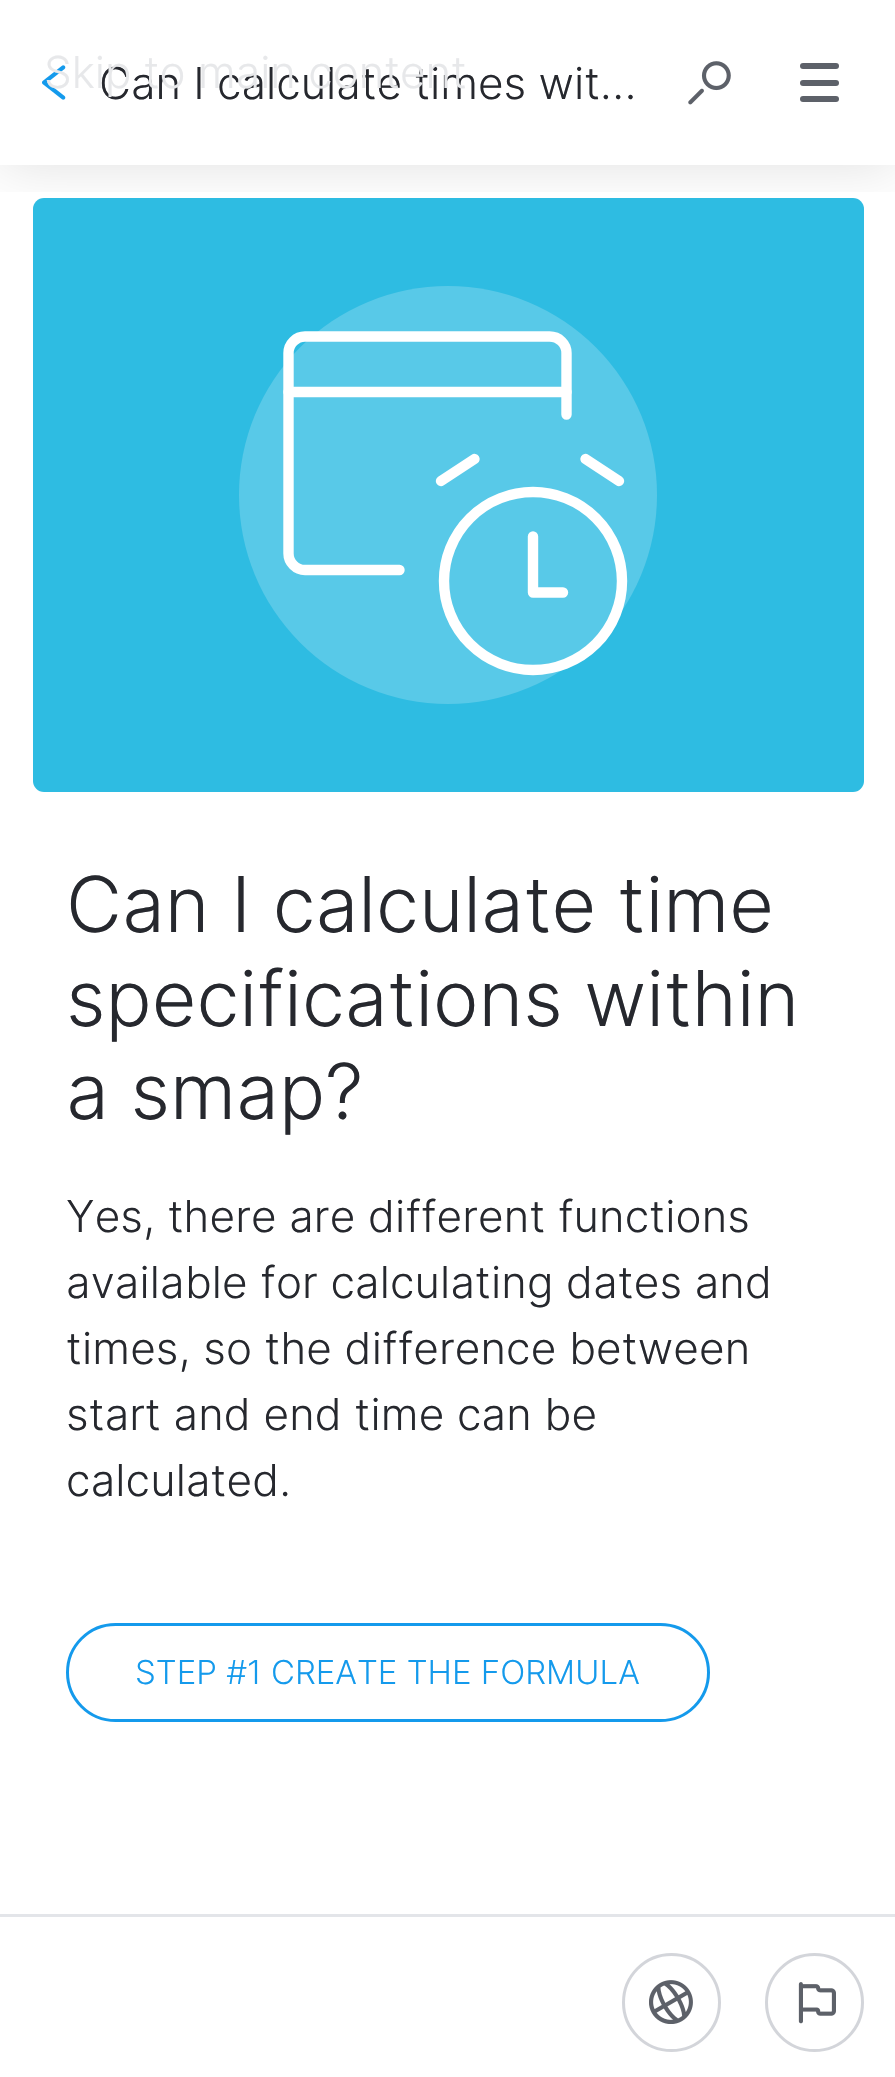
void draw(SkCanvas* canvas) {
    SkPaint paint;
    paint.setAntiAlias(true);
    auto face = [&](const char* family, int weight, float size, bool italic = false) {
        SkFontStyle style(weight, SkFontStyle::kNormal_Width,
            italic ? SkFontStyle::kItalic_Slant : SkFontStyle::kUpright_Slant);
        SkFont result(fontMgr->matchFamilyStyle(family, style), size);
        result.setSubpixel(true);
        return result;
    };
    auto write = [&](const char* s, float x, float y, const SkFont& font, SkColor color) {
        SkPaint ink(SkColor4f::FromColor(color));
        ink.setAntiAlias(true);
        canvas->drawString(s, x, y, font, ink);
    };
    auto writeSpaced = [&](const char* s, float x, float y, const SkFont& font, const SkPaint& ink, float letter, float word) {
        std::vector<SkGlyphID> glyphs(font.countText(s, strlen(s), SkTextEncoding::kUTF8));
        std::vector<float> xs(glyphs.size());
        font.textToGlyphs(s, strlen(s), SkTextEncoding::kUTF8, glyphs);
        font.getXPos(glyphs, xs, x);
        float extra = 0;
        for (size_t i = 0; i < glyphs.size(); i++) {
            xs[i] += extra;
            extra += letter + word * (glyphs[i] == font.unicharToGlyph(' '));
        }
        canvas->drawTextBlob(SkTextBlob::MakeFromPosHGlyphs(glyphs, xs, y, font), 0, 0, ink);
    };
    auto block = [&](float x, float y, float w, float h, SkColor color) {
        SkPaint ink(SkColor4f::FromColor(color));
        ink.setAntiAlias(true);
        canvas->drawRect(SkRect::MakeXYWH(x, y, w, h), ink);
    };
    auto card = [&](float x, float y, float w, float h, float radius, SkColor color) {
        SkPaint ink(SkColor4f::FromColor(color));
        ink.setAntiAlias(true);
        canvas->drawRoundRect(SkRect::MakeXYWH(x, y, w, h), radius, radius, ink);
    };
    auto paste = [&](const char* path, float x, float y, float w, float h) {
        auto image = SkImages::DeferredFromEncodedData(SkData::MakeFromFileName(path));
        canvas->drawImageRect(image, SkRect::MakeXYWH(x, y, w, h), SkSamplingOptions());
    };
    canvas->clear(SK_ColorWHITE);
    card(33, 198, 831, 594, 11, SkColorSetRGB(46, 188, 226));
    canvas->save();
    canvas->clipRect(SkRect::MakeXYWH(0, 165, 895, 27));
    paint.setColor(SkColorSetARGB(31, 0, 0, 0));
    paint.setMaskFilter(SkMaskFilter::MakeBlur(kNormal_SkBlurStyle, 27.5f));
    canvas->drawRect(SkRect::MakeXYWH(0, 0, 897, 165), paint);
    paint.setMaskFilter(nullptr);
    canvas->restore();
    paste("pic1.png", 42, 65, 24, 35);
    auto kFont1 = face("Inter", 300, 44);
    write("Can I calculate times wit…", 99, 99, kFont1, SkColorSetRGB(38, 40, 46));
    write("Skip to main content", 44, 88, kFont1, SkColorSetRGB(231, 232, 234));
    paste("pic2.png", 688, 61, 43, 44);
    card(800, 63, 39, 6, 3, SkColorSetRGB(93, 97, 105));
    card(800, 80, 39, 6, 3, SkColorSetRGB(93, 97, 105));
    card(800, 96, 39, 6, 3, SkColorSetRGB(93, 97, 105));
    paint.setColor(SkColorSetRGB(88, 201, 232));
    canvas->drawCircle(448, 495, 209, paint);
    paint.setStyle(SkPaint::kStroke_Style);
    paint.setStrokeWidth(10.4f);
    paint.setColor(SK_ColorWHITE);
    canvas->drawCircle(533, 581, 89, paint);
    paint.setStrokeCap(SkPaint::kRound_Cap);
    paint.setStrokeJoin(SkPaint::kRound_Join);
    canvas->drawPath(SkPathBuilder().moveTo(533, 536.5f).lineTo(533, 592.5f).lineTo(563, 592.5f).detach(), paint);
    canvas->drawPath(SkPathBuilder().moveTo(566.5f, 414.5f).lineTo(566.5f, 353).cubicTo(566.5f, 344, 559, 336.5f, 549.5f, 336.5f).lineTo(305, 336.5f).cubicTo(296, 336.5f, 288.5f, 344, 288.5f, 353).lineTo(288.5f, 553.5f).cubicTo(288.5f, 562.5f, 296, 570, 305, 570).lineTo(399.5f, 570).detach(), paint);
    canvas->drawPath(SkPathBuilder().moveTo(288.5f, 392).lineTo(566.5f, 392).detach(), paint);
    canvas->drawPath(SkPathBuilder().moveTo(441, 481).lineTo(474.5f, 459).detach(), paint);
    canvas->drawPath(SkPathBuilder().moveTo(619, 481).lineTo(585.5f, 459).detach(), paint);
    auto kFont2 = face("Inter", 300, 77);
    write("Can I calculate time", 66, 932, kFont2, SkColorSetRGB(38, 40, 46));
    write("specifications within", 66, 1026, kFont2, SkColorSetRGB(38, 40, 46));
    write("a smap?", 66, 1119, kFont2, SkColorSetRGB(38, 40, 46));
    paint.setStyle(SkPaint::kFill_Style);
    paint.setColor(SkColorSetRGB(38, 40, 46));
    writeSpaced("Yes, there are different functions", 66, 1232, kFont1, paint, 0.15f, 0);
    writeSpaced("available for calculating dates and", 66, 1298, kFont1, paint, 0.15f, 0);
    writeSpaced("times, so the difference between", 66, 1364, kFont1, paint, 0.15f, 0);
    writeSpaced("start and end time can be", 66, 1430, kFont1, paint, 0.15f, 0);
    writeSpaced("calculated.", 66, 1496, kFont1, paint, 0.15f, 0);
    paint.setStyle(SkPaint::kStroke_Style);
    paint.setStrokeWidth(3);
    paint.setStrokeCap(SkPaint::kButt_Cap);
    paint.setStrokeJoin(SkPaint::kMiter_Join);
    paint.setColor(SkColorSetRGB(20, 154, 236));
    canvas->drawRoundRect(SkRect::MakeXYWH(67.5f, 1624.5f, 641, 96), 48, 48, paint);
    auto kFont3 = face("Inter", 300, 33);
    write("STEP #1 CREATE THE FORMULA", 135, 1684, kFont3, SkColorSetRGB(20, 154, 236));
    block(0, 1914, 895, 3, SkColorSetRGB(227, 229, 233));
    paint.setColor(SkColorSetRGB(211, 213, 218));
    canvas->drawCircle(671.5f, 2002.5f, 48, paint);
    paste("pic3.png", 649, 1980, 44, 44);
    canvas->drawCircle(814.5f, 2002.5f, 48, paint);
    paste("pic4.png", 798, 1982, 38, 42);
}
